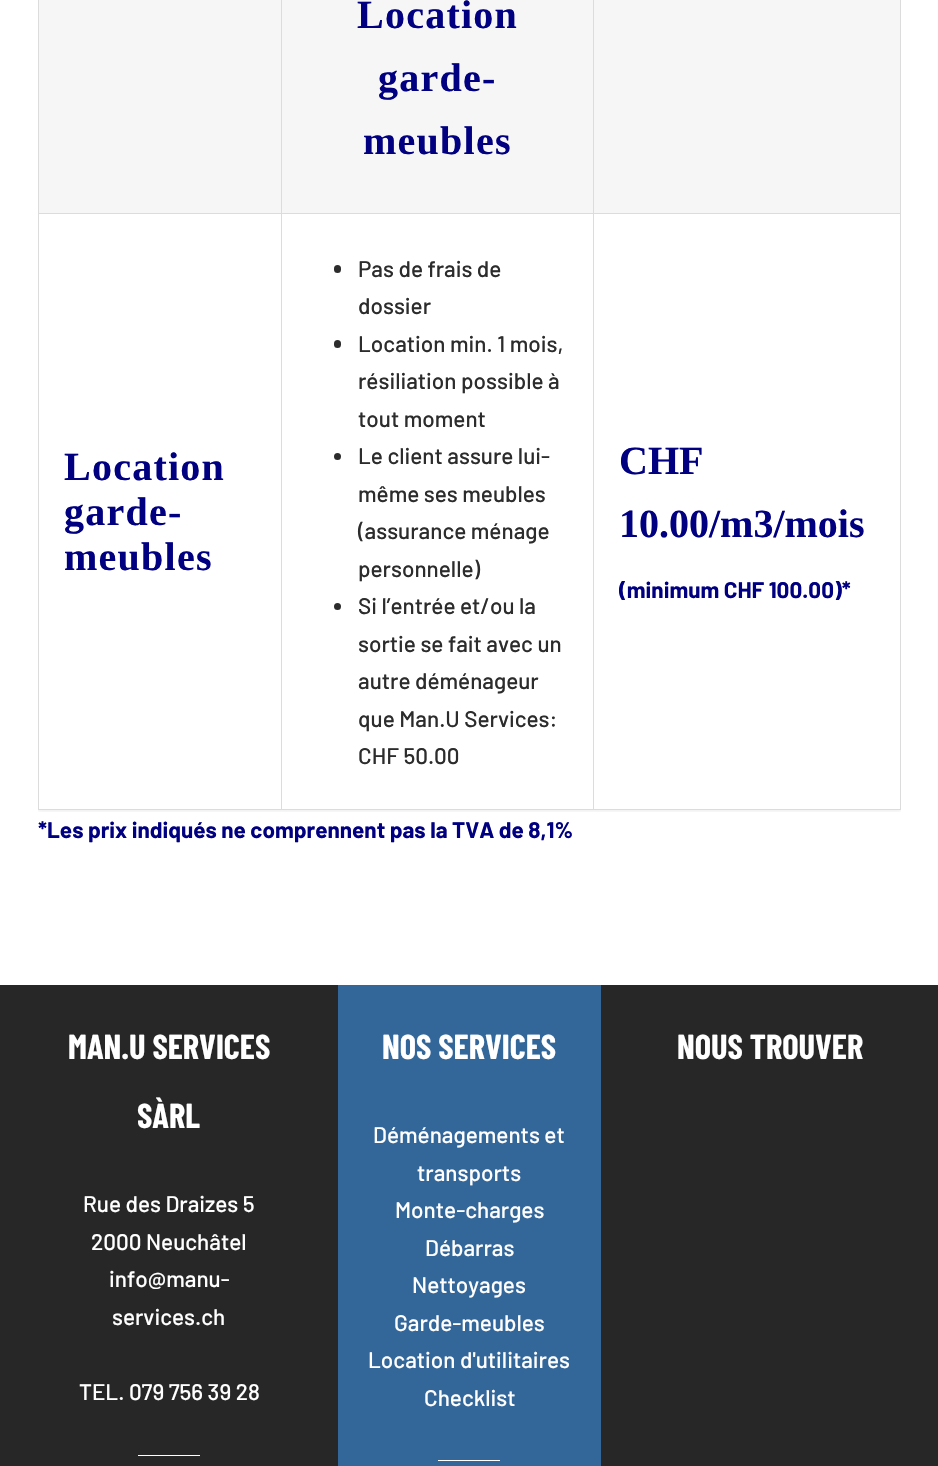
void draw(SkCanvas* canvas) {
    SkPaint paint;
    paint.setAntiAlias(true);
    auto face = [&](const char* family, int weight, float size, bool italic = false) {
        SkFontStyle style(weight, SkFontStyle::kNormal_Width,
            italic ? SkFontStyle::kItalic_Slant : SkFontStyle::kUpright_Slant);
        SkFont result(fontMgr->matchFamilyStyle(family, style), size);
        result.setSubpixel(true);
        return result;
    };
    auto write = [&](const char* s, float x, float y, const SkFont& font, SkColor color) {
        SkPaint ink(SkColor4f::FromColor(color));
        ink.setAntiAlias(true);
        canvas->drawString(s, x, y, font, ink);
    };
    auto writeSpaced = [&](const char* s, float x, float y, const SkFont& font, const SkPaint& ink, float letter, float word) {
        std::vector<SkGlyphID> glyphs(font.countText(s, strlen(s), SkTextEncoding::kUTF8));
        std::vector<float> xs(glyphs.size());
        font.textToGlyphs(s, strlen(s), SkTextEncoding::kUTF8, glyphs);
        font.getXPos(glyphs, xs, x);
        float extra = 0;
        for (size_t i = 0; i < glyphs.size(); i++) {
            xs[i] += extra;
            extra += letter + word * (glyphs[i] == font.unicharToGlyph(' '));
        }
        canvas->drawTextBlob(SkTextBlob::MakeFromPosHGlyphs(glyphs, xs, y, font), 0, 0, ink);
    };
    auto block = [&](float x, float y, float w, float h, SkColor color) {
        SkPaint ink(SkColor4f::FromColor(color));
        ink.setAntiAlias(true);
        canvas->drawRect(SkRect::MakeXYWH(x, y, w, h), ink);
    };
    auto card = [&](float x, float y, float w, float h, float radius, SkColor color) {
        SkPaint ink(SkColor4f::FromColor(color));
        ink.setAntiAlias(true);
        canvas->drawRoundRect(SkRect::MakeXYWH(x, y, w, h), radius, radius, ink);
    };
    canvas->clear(SK_ColorWHITE);
    canvas->save();
    canvas->clipRect(SkRect::MakeXYWH(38, 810, 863, 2));
    paint.setColor(SkColorSetARGB(20, 0, 0, 0));
    paint.setMaskFilter(SkMaskFilter::MakeBlur(kNormal_SkBlurStyle, 2));
    canvas->drawRect(SkRect::MakeXYWH(38, -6, 863, 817), paint);
    paint.setMaskFilter(nullptr);
    canvas->restore();
    block(900, 0, 1, 810, SkColorSetRGB(220, 220, 220));
    block(38, 809, 863, 1, SkColorSetRGB(220, 220, 220));
    block(38, 0, 1, 810, SkColorSetRGB(220, 220, 220));
    block(39, 0, 554, 213, SkColorSetRGB(246, 246, 246));
    block(593, 213, 308, 1, SkColorSetRGB(220, 220, 220));
    block(593, 213, 1, 597, SkColorSetRGB(220, 220, 220));
    block(281, 213, 313, 1, SkColorSetRGB(220, 220, 220));
    block(281, 213, 1, 597, SkColorSetRGB(220, 220, 220));
    block(38, 213, 245, 1, SkColorSetRGB(220, 220, 220));
    block(281, 0, 1, 214, SkColorSetRGB(220, 220, 220));
    auto kFont1 = face("Liberation Serif", 700, 40);
    paint.setColor(SkColorSetRGB(0, 0, 128));
    writeSpaced("Location", 357, 28, kFont1, paint, 1.25f, 0);
    writeSpaced("garde-", 378, 91, kFont1, paint, 1.25f, 0);
    writeSpaced("meubles", 363, 154, kFont1, paint, 1.25f, 0);
    block(594, 0, 306, 213, SkColorSetRGB(246, 246, 246));
    block(593, 0, 1, 214, SkColorSetRGB(220, 220, 220));
    writeSpaced("Location", 64, 480, kFont1, paint, 1.25f, 0);
    writeSpaced("garde-", 64, 525, kFont1, paint, 1.25f, 0);
    writeSpaced("meubles", 64, 570, kFont1, paint, 1.25f, 0);
    card(334, 265, 7, 8, 3.5f, SkColorSetRGB(45, 44, 44));
    auto kFont2 = face("Barlow", 500, 22.5f);
    write("Pas de frais de", 358, 277, kFont2, SkColorSetRGB(45, 44, 44));
    write("dossier", 358, 314, kFont2, SkColorSetRGB(45, 44, 44));
    card(334, 340, 7, 8, 3.5f, SkColorSetRGB(45, 44, 44));
    write("Location min. 1 mois,", 358, 352, kFont2, SkColorSetRGB(45, 44, 44));
    write("résiliation possible à", 358, 389, kFont2, SkColorSetRGB(45, 44, 44));
    write("tout moment", 358, 427, kFont2, SkColorSetRGB(45, 44, 44));
    paint.setColor(SkColorSetRGB(45, 44, 44));
    canvas->drawCircle(337.5f, 456.5f, 3.5f, paint);
    write("Le client assure lui-", 358, 464, kFont2, SkColorSetRGB(45, 44, 44));
    write("même ses meubles", 358, 502, kFont2, SkColorSetRGB(45, 44, 44));
    write("(assurance ménage", 358, 539, kFont2, SkColorSetRGB(45, 44, 44));
    write("personnelle)", 358, 577, kFont2, SkColorSetRGB(45, 44, 44));
    canvas->drawCircle(337.5f, 606.5f, 3.5f, paint);
    write("Si l’entrée et/ou la", 358, 614, kFont2, SkColorSetRGB(45, 44, 44));
    write("sortie se fait avec un", 358, 652, kFont2, SkColorSetRGB(45, 44, 44));
    write("autre déménageur", 358, 689, kFont2, SkColorSetRGB(45, 44, 44));
    write("que Man.U Services:", 358, 727, kFont2, SkColorSetRGB(45, 44, 44));
    write("CHF 50.00", 358, 764, kFont2, SkColorSetRGB(45, 44, 44));
    write("CHF", 619, 474, kFont1, SkColorSetRGB(0, 0, 128));
    write("10.00/m3/mois", 619, 537, kFont1, SkColorSetRGB(0, 0, 128));
    auto kFont3 = face("Barlow", 700, 22.5f);
    write("(minimum CHF 100.00)*", 619, 598, kFont3, SkColorSetRGB(0, 0, 128));
    write("*Les prix indiqués ne comprennent pas la TVA de 8,1%", 38, 838, kFont3, SkColorSetRGB(0, 0, 128));
    block(0, 985, 938, 481, SkColorSetRGB(39, 39, 39));
    auto kFont4 = face("Barlow Condensed", 700, 34.5f);
    write("MAN.U SERVICES", 68, 1059, kFont4, SK_ColorWHITE);
    write("SÀRL", 137, 1128, kFont4, SK_ColorWHITE);
    write("Rue des Draizes 5", 83, 1212, kFont2, SK_ColorWHITE);
    write("2000 Neuchâtel", 91, 1250, kFont2, SK_ColorWHITE);
    write("info@manu-", 109, 1287, kFont2, SK_ColorWHITE);
    write("services.ch", 112, 1325, kFont2, SK_ColorWHITE);
    write("TEL. 079 756 39 28", 79, 1400, kFont2, SK_ColorWHITE);
    block(138, 1455, 62, 1, SK_ColorWHITE);
    block(338, 985, 263, 481, SkColorSetRGB(51, 102, 153));
    write("NOS SERVICES", 382, 1059, kFont4, SK_ColorWHITE);
    write("Déménagements et", 373, 1143, kFont2, SK_ColorWHITE);
    write("transports", 417, 1181, kFont2, SK_ColorWHITE);
    write("Monte-charges", 395, 1218, kFont2, SK_ColorWHITE);
    write("Débarras", 425, 1256, kFont2, SK_ColorWHITE);
    write("Nettoyages", 412, 1293, kFont2, SK_ColorWHITE);
    write("Garde-meubles", 394, 1331, kFont2, SK_ColorWHITE);
    write("Location d'utilitaires", 368, 1368, kFont2, SK_ColorWHITE);
    write("Checklist", 424, 1406, kFont2, SK_ColorWHITE);
    block(438, 1460, 62, 1, SK_ColorWHITE);
    write("NOUS TROUVER", 677, 1059, kFont4, SK_ColorWHITE);
}
